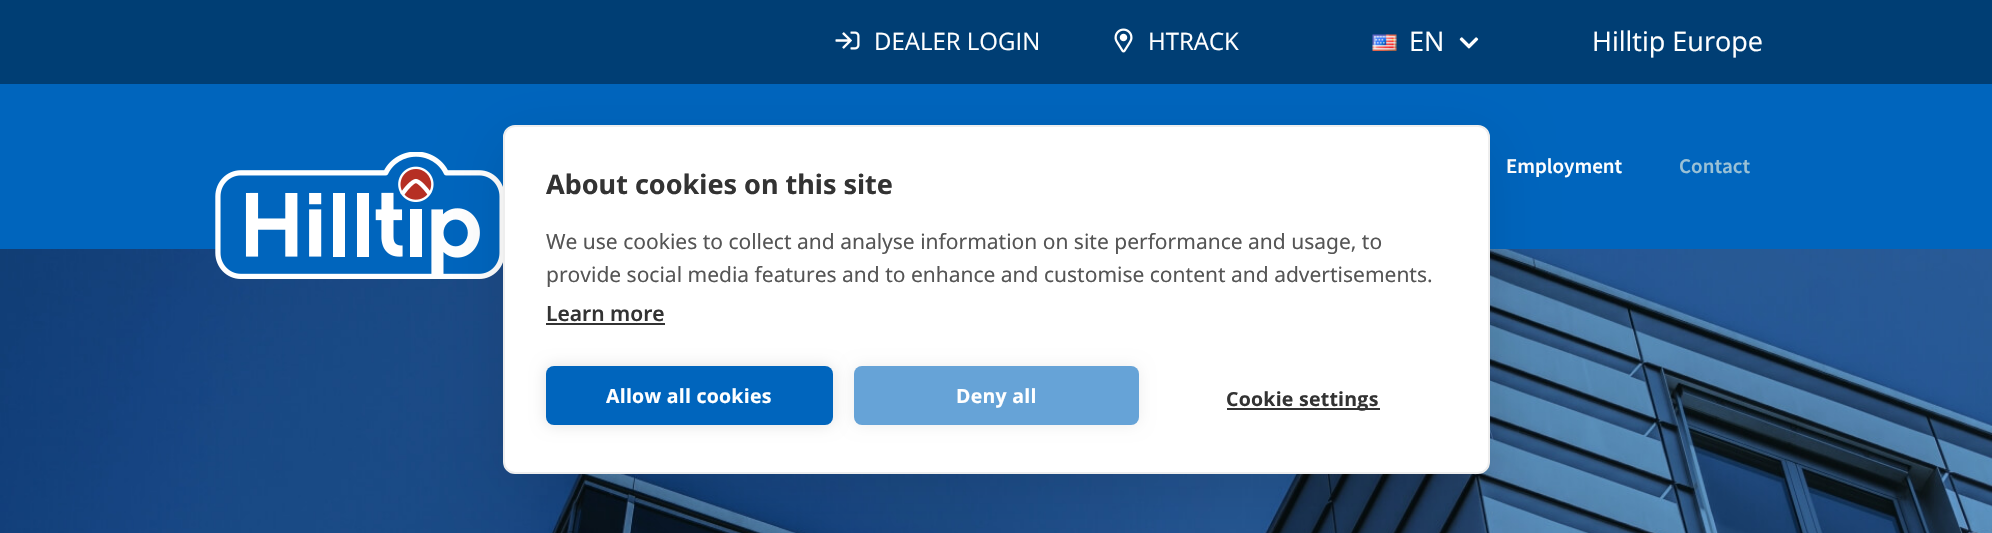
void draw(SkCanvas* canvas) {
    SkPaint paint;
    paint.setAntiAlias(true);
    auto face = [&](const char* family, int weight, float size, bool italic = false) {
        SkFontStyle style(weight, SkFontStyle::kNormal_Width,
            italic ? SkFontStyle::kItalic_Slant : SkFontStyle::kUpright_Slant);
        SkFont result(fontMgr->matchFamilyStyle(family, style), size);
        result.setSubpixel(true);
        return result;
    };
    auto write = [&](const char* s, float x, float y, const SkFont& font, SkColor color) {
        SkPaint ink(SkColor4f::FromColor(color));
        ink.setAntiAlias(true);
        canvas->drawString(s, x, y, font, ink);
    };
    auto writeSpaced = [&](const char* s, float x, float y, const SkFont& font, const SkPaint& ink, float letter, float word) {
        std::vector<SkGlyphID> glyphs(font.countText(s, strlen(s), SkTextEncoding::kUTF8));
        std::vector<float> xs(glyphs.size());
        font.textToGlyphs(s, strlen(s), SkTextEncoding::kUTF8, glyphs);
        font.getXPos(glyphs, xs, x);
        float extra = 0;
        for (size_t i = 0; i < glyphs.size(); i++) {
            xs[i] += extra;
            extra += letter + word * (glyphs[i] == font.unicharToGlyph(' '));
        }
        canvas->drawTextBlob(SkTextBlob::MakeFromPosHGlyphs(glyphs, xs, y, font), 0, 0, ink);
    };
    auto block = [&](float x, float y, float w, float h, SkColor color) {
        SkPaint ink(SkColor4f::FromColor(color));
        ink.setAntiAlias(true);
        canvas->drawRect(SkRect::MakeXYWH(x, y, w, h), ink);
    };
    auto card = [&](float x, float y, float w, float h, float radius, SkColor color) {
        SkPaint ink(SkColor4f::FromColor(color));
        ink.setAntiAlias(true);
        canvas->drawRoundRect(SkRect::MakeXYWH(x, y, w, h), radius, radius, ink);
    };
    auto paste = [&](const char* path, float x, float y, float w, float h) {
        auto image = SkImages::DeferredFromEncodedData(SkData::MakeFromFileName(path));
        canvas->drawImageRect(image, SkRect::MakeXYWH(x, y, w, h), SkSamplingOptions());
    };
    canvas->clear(SkColorSetRGB(0, 101, 189));
    block(0, 0, 1992, 84, SkColorSetRGB(0, 62, 116));
    paste("pic1.png", 835, 31, 25, 19);
    auto kFont1 = face("Open Sans", 400, 24);
    write("DEALER LOGIN", 874, 50, kFont1, SK_ColorWHITE);
    paste("pic2.png", 1114, 28, 19, 25);
    write("HTRACK", 1148, 50, kFont1, SK_ColorWHITE);
    paste("pic3.png", 1372, 34, 25, 17);
    auto kFont2 = face("Open Sans", 400, 27);
    write("EN", 1409, 51, kFont2, SK_ColorWHITE);
    paste("pic4.png", 1459, 37, 20, 12);
    write("Hilltip Europe", 1592, 51, kFont2, SK_ColorWHITE);
    paste("pic6.png", 0, 249, 1992, 284);
    paste("pic5.png", 215, 152, 288, 127);
    auto kFont3 = face("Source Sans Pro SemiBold", 600, 21);
    write("Employment", 1506, 173, kFont3, SK_ColorWHITE);
    write("Contact", 1679, 173, kFont3, SkColorSetRGB(154, 193, 214));
    paint.setColor(SkColorSetARGB(26, 0, 0, 0));
    paint.setMaskFilter(SkMaskFilter::MakeBlur(kNormal_SkBlurStyle, 30));
    canvas->drawRoundRect(SkRect::MakeXYWH(503, 140, 987, 349), 12, 12, paint);
    paint.setMaskFilter(nullptr);
    paint.setColor(SK_ColorWHITE);
    canvas->drawRoundRect(SkRect::MakeXYWH(504, 126, 985, 347), 11, 11, paint);
    paint.setStyle(SkPaint::kStroke_Style);
    paint.setStrokeWidth(2);
    paint.setColor(SkColorSetRGB(238, 238, 238));
    canvas->drawRoundRect(SkRect::MakeXYWH(504, 126, 985, 347), 11, 11, paint);
    auto kFont4 = face("Noto Sans", 700, 27);
    write("About cookies on this site", 546, 194, kFont4, SkColorSetRGB(51, 51, 51));
    auto kFont5 = face("Noto Sans", 400, 21);
    write("We use cookies to collect and analyse information on site performance and usage, to", 546, 249, kFont5, SkColorSetRGB(85, 85, 85));
    write("provide social media features and to enhance and customise content and advertisements.", 546, 282, kFont5, SkColorSetRGB(85, 85, 85));
    auto kFont6 = face("Noto Sans", 600, 21);
    write("Learn more", 546, 321, kFont6, SkColorSetRGB(51, 51, 51));
    block(546, 323, 119, 2, SkColorSetRGB(51, 51, 51));
    paint.setStyle(SkPaint::kFill_Style);
    paint.setColor(SkColorSetARGB(31, 0, 0, 0));
    paint.setMaskFilter(SkMaskFilter::MakeBlur(kNormal_SkBlurStyle, 7.5f));
    canvas->drawRoundRect(SkRect::MakeXYWH(546, 366, 287, 59), 8, 8, paint);
    paint.setMaskFilter(nullptr);
    card(546, 366, 287, 59, 8, SkColorSetRGB(0, 101, 189));
    auto kFont7 = face("Open Sans", 700, 19.5f);
    paint.setColor(SK_ColorWHITE);
    writeSpaced("Allow all cookies", 606, 403, kFont7, paint, 0.25f, 0);
    paint.setColor(SkColorSetARGB(18, 0, 0, 0));
    paint.setMaskFilter(SkMaskFilter::MakeBlur(kNormal_SkBlurStyle, 7.5f));
    canvas->drawRoundRect(SkRect::MakeXYWH(854, 366, 285, 59), 8, 8, paint);
    paint.setMaskFilter(nullptr);
    card(854, 366, 285, 59, 8, SkColorSetRGB(102, 163, 215));
    paint.setColor(SK_ColorWHITE);
    writeSpaced("Deny all", 956, 403, kFont7, paint, 0.25f, 0);
    block(1227, 408, 153, 2, SkColorSetRGB(51, 51, 51));
    paint.setColor(SkColorSetRGB(51, 51, 51));
    writeSpaced("Cookie settings", 1226, 406, kFont7, paint, 0.25f, 0);
}
